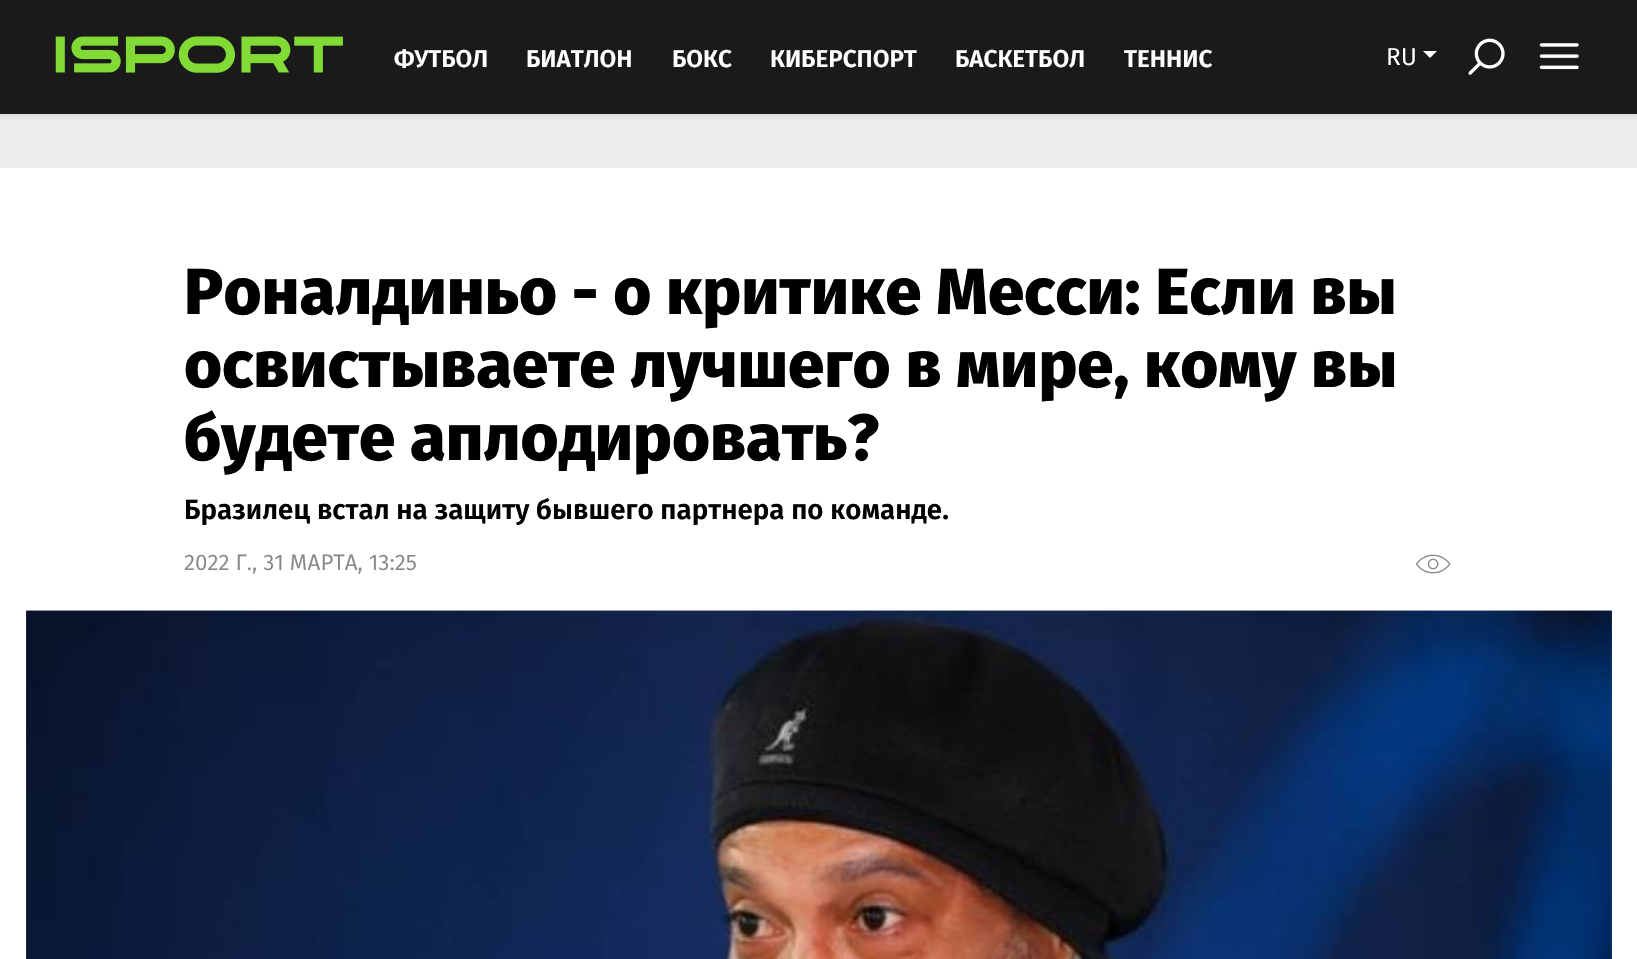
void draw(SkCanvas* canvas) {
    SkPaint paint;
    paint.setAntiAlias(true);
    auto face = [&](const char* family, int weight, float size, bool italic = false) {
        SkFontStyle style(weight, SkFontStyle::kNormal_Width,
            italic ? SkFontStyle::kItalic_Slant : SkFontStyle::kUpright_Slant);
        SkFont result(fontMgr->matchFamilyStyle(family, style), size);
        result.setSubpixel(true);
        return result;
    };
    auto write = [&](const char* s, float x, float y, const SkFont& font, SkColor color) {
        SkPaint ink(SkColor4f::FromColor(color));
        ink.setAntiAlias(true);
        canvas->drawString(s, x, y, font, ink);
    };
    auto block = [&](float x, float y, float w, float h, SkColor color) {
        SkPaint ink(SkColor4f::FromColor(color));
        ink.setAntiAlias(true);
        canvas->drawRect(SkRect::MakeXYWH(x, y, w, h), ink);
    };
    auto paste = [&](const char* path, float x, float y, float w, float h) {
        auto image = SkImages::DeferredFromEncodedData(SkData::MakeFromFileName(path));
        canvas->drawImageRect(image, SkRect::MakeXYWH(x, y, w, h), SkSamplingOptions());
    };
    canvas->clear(SkColorSetRGB(238, 238, 238));
    block(0, 0, 1637, 114, SkColorSetRGB(26, 26, 26));
    paste("pic1.png", 55, 36, 288, 37);
    auto kFont1 = face("Fira Sans", 600, 24.5f);
    write("ФУТБОЛ", 394, 67, kFont1, SK_ColorWHITE);
    write("БИАТЛОН", 526, 67, kFont1, SK_ColorWHITE);
    write("БОКС", 672, 67, kFont1, SK_ColorWHITE);
    write("КИБЕРСПОРТ", 770, 67, kFont1, SK_ColorWHITE);
    write("БАСКЕТБОЛ", 955, 67, kFont1, SK_ColorWHITE);
    write("ТЕННИС", 1124, 67, kFont1, SK_ColorWHITE);
    auto kFont2 = face("Fira Sans", 400, 24.5f);
    write("RU", 1386, 65, kFont2, SK_ColorWHITE);
    paint.setColor(SK_ColorWHITE);
    canvas->drawPath(SkPathBuilder().moveTo(1423, 51).lineTo(1437, 51).lineTo(1430, 58).close().detach(), paint);
    paste("pic2.png", 1468, 38, 37, 37);
    paste("pic3.png", 1539, 43, 40, 27);
    {
        const SkColor colors[] = {SkColorSetRGB(219, 219, 219), SkColorSetRGB(238, 238, 238)};
        const float stops[] = {0, 1};
        const SkPoint ends[] = {{819, 114}, {819, 121}};
        paint.setShader(SkGradientShader::MakeLinear(ends, colors, stops, 2, SkTileMode::kClamp));
        paint.setAlpha(255);
    }
    canvas->drawRect(SkRect::MakeXYWH(0, 114, 1637, 6), paint);
    block(0, 168, 1637, 791, SK_ColorWHITE);
    auto kFont3 = face("Fira Sans", 800, 66.5f);
    write("Роналдиньо - о критике Месси: Если вы", 184, 314, kFont3, SK_ColorBLACK);
    write("освистываете лучшего в мире, кому вы", 184, 387, kFont3, SK_ColorBLACK);
    write("будете аплодировать?", 184, 460, kFont3, SK_ColorBLACK);
    auto kFont4 = face("Fira Sans", 600, 28);
    write("Бразилец встал на защиту бывшего партнера по команде.", 184, 519, kFont4, SK_ColorBLACK);
    auto kFont5 = face("Fira Sans", 400, 22.4f);
    write("2022 Г., 31 МАРТА, 13:25", 184, 570, kFont5, SkColorSetRGB(136, 136, 136));
    paste("pic4.png", 1415, 554, 36, 20);
    paste("pic5.png", 26, 610, 1586, 349);
    paste("pic6.png", 26, 610, 1586, 349);
}
